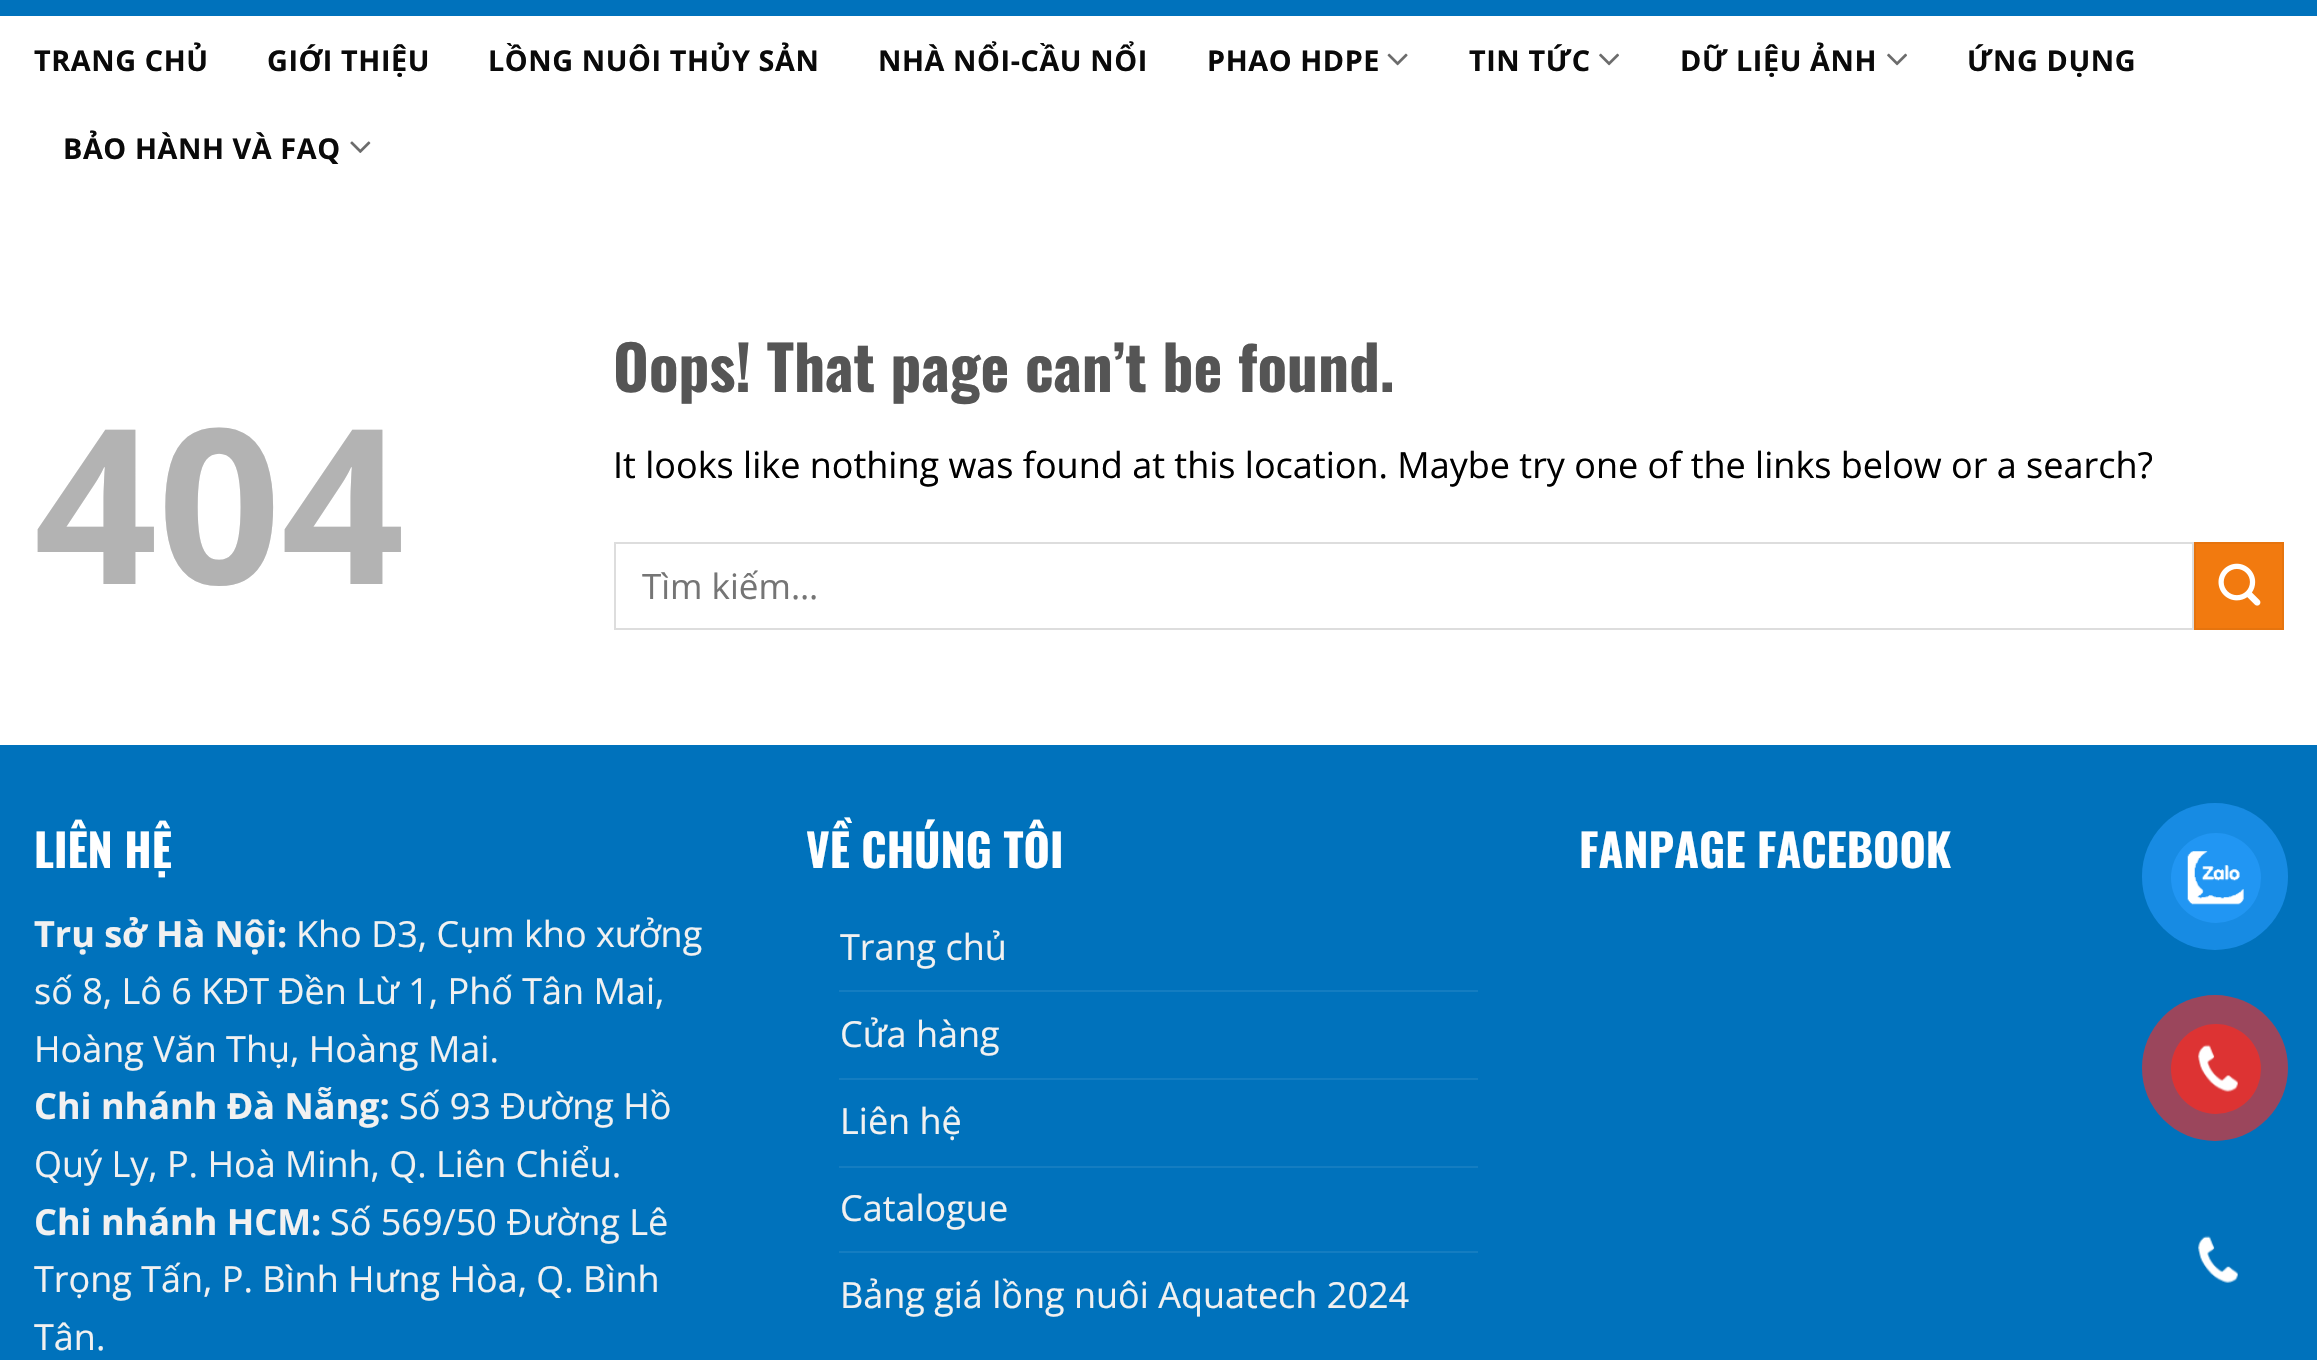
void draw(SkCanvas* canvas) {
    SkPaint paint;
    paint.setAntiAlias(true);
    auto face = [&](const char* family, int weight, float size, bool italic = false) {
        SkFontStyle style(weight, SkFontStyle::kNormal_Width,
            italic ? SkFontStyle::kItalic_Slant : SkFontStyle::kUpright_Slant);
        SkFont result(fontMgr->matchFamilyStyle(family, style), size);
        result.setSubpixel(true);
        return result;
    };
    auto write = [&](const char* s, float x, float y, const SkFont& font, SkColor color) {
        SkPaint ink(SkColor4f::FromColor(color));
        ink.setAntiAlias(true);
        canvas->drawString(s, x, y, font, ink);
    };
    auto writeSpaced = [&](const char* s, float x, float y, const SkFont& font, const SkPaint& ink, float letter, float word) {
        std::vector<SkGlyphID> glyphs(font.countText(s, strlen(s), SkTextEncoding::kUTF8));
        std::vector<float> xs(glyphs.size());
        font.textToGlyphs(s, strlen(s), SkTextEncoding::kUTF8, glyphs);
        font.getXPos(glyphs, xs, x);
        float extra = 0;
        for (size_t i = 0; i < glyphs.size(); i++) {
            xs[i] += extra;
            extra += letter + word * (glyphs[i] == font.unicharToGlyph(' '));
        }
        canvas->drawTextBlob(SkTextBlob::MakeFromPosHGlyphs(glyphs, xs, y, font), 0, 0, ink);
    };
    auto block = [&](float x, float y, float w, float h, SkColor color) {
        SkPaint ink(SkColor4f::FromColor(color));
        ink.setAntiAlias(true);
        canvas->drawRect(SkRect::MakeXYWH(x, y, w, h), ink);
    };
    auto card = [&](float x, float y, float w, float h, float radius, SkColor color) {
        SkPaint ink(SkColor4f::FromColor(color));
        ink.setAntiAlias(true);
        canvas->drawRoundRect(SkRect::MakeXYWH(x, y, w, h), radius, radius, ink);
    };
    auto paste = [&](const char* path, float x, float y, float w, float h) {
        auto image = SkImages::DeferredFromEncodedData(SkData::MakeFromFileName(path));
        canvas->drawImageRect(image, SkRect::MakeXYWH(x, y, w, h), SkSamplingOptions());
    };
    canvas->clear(SK_ColorWHITE);
    block(0, 0, 2317, 16, SkColorSetRGB(0, 114, 188));
    auto kFont1 = face("Open Sans", 700, 28.75f);
    paint.setColor(SkColorSetRGB(10, 10, 10));
    writeSpaced("TRANG CHỦ", 34, 71, kFont1, paint, 0.6f, 0);
    writeSpaced("GIỚI THIỆU", 267, 71, kFont1, paint, 0.6f, 0);
    writeSpaced("LỒNG NUÔI THỦY SẢN", 488, 71, kFont1, paint, 0.6f, 0);
    writeSpaced("NHÀ NỔI-CẦU NỔI", 878, 71, kFont1, paint, 0.6f, 0);
    writeSpaced("PHAO HDPE", 1207, 71, kFont1, paint, 0.6f, 0);
    paste("pic1.png", 1387, 53, 21, 13);
    writeSpaced("TIN TỨC", 1469, 71, kFont1, paint, 0.6f, 0);
    paste("pic2.png", 1599, 53, 20, 13);
    writeSpaced("DỮ LIỆU ẢNH", 1680, 71, kFont1, paint, 0.6f, 0);
    paste("pic2.png", 1887, 53, 20, 13);
    writeSpaced("ỨNG DỤNG", 1967, 71, kFont1, paint, 0.6f, 0);
    writeSpaced("BẢO HÀNH VÀ FAQ", 63, 159, kFont1, paint, 0.6f, 0);
    paste("pic3.png", 350, 141, 21, 12);
    auto kFont2 = face("Open Sans", 700, 216);
    write("404", 34, 584, kFont2, SkColorSetRGB(179, 179, 179));
    auto kFont3 = face("Oswald", 700, 61.25f);
    write("Oops! That page can’t be found.", 613, 392, kFont3, SkColorSetRGB(85, 85, 85));
    auto kFont4 = face("Open Sans", 400, 36);
    write("It looks like nothing was found at this location. Maybe try one of the links below or a search?", 613, 478, kFont4, SK_ColorBLACK);
    paint.setStyle(SkPaint::kStroke_Style);
    paint.setStrokeWidth(2);
    paint.setColor(SkColorSetRGB(221, 221, 221));
    canvas->drawRect(SkRect::MakeXYWH(615, 543, 1578, 86), paint);
    auto kFont5 = face("Open Sans", 400, 35);
    write("Tìm kiếm…", 642, 599, kFont5, SkColorSetRGB(117, 117, 117));
    paint.setStyle(SkPaint::kFill_Style);
    paint.setColor(SkColorSetRGB(242, 122, 15));
    canvas->drawRect(SkRect::MakeXYWH(2195, 543, 88, 86), paint);
    paint.setStyle(SkPaint::kStroke_Style);
    paint.setColor(SkColorSetRGB(230, 116, 14));
    canvas->drawRect(SkRect::MakeXYWH(2195, 543, 88, 86), paint);
    paste("pic4.png", 2218, 563, 43, 43);
    block(0, 745, 2317, 615, SkColorSetRGB(0, 114, 188));
    auto kFont6 = face("Oswald", 700, 45);
    write("LIÊN HỆ", 34, 868, kFont6, SK_ColorWHITE);
    auto kFont7 = face("Open Sans", 700, 36);
    write("Trụ sở Hà Nội:", 34, 947, kFont7, SkColorSetRGB(241, 241, 241));
    write("Kho D3, Cụm kho xưởng", 296, 947, kFont4, SkColorSetRGB(241, 241, 241));
    write("số 8, Lô 6 KĐT Đền Lừ 1, Phố Tân Mai,", 34, 1004, kFont4, SkColorSetRGB(241, 241, 241));
    write("Hoàng Văn Thụ, Hoàng Mai.", 34, 1062, kFont4, SkColorSetRGB(241, 241, 241));
    write("Chi nhánh Đà Nẵng:", 34, 1119, kFont7, SkColorSetRGB(241, 241, 241));
    write("Số 93 Đường Hồ", 399, 1119, kFont4, SkColorSetRGB(241, 241, 241));
    write("Quý Ly, P. Hoà Minh, Q. Liên Chiểu.", 34, 1177, kFont4, SkColorSetRGB(241, 241, 241));
    write("Chi nhánh HCM:", 34, 1235, kFont7, SkColorSetRGB(241, 241, 241));
    write("Số 569/50 Đường Lê", 330, 1235, kFont4, SkColorSetRGB(241, 241, 241));
    write("Trọng Tấn, P. Bình Hưng Hòa, Q. Bình", 34, 1292, kFont4, SkColorSetRGB(241, 241, 241));
    write("Tân.", 34, 1350, kFont4, SkColorSetRGB(241, 241, 241));
    write("VỀ CHÚNG TÔI", 806, 868, kFont6, SK_ColorWHITE);
    write("Trang chủ", 840, 960, kFont4, SkColorSetRGB(241, 241, 241));
    block(839, 990, 639, 2, SkColorSetRGB(20, 125, 193));
    write("Cửa hàng", 840, 1047, kFont4, SkColorSetRGB(241, 241, 241));
    block(839, 1078, 639, 2, SkColorSetRGB(20, 125, 193));
    write("Liên hệ", 840, 1134, kFont4, SkColorSetRGB(241, 241, 241));
    block(839, 1166, 639, 2, SkColorSetRGB(20, 125, 193));
    write("Catalogue", 840, 1221, kFont4, SkColorSetRGB(241, 241, 241));
    block(839, 1251, 639, 2, SkColorSetRGB(20, 125, 193));
    write("Bảng giá lồng nuôi Aquatech 2024", 840, 1308, kFont4, SkColorSetRGB(241, 241, 241));
    write("FANPAGE FACEBOOK", 1579, 868, kFont6, SK_ColorWHITE);
    card(2142, 803, 146, 147, 73, SkColorSetRGB(23, 139, 227));
    paint.setStyle(SkPaint::kFill_Style);
    paint.setColor(SkColorSetRGB(33, 150, 243));
    canvas->drawCircle(2216, 878, 45, paint);
    paste("pic5.png", 2187, 851, 57, 54);
    paint.setColor(SkColorSetRGB(155, 70, 92));
    canvas->drawCircle(2215, 1068, 73, paint);
    paint.setColor(SkColorSetRGB(221, 51, 51));
    canvas->drawCircle(2216, 1069, 45, paint);
    paste("pic6.png", 2198, 1044, 40, 48);
    paste("pic7.png", 2198, 1235, 40, 48);
}
